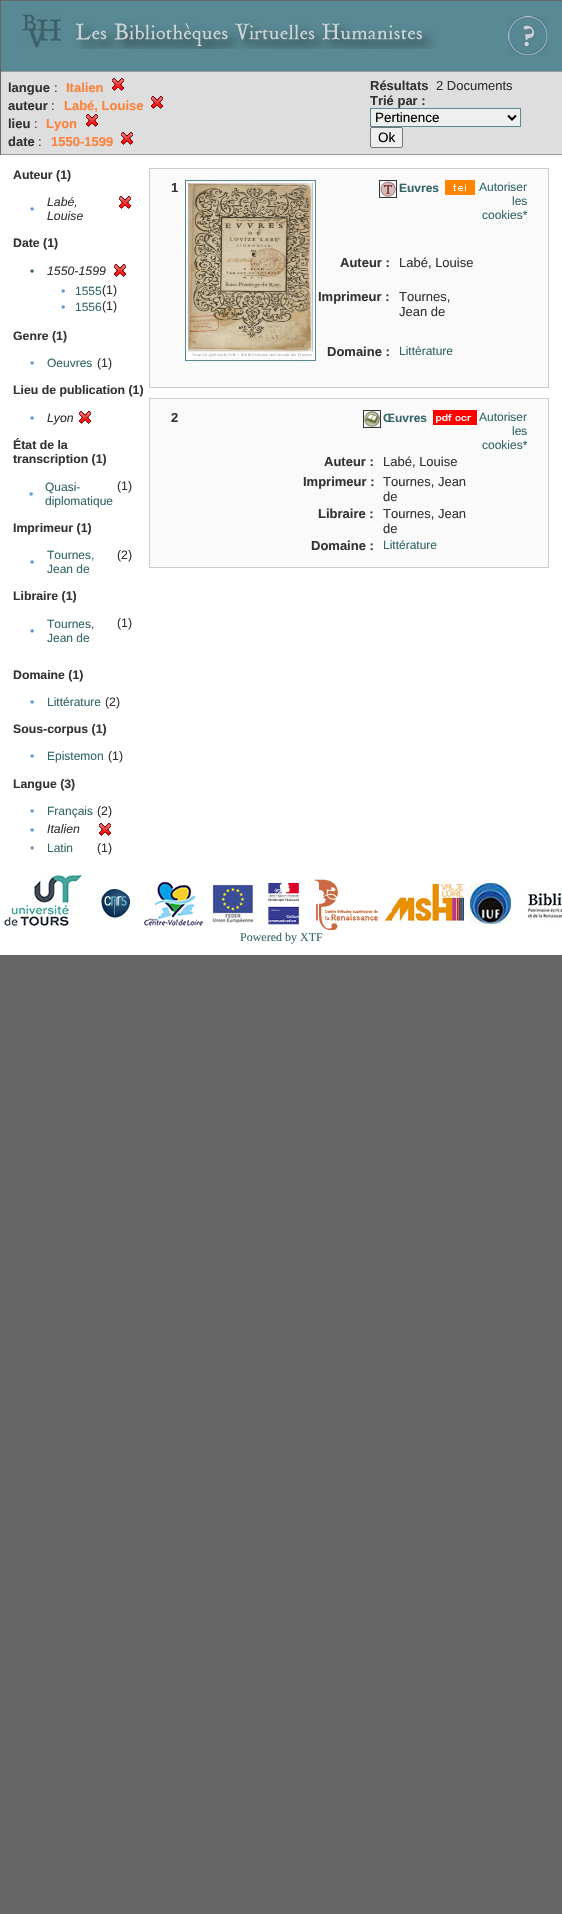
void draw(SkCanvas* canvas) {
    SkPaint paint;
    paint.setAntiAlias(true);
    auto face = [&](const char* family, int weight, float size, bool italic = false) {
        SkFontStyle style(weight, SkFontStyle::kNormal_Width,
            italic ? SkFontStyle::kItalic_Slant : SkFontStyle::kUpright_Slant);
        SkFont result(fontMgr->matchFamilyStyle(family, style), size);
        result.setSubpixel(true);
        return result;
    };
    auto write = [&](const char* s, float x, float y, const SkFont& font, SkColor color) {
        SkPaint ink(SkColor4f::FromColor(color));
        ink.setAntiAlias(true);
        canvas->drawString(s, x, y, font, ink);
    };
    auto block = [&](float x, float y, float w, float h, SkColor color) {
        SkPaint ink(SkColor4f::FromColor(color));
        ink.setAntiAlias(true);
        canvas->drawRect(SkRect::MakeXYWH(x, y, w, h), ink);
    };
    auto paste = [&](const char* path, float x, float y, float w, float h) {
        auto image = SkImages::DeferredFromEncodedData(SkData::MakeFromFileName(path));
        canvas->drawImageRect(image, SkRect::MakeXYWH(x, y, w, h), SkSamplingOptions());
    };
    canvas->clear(SkColorSetRGB(102, 102, 102));
    block(1, 1, 561, 70, SkColorSetRGB(89, 137, 149));
    paste("pic1.png", 21, 12, 417, 37);
    paste("pic2.png", 508, 16, 40, 40);
    block(1, 72, 561, 82, SkColorSetRGB(222, 222, 223));
    block(0, 71, 562, 1, SkColorSetRGB(153, 153, 153));
    block(0, 154, 562, 1, SkColorSetRGB(153, 153, 153));
    block(0, 71, 1, 84, SkColorSetRGB(102, 102, 102));
    auto kFont1 = face("Liberation Sans", 700, 13);
    write("langue", 8, 92, kFont1, SkColorSetRGB(51, 51, 51));
    auto kFont2 = face("Liberation Sans", 400, 13);
    write(":", 54, 92, kFont2, SkColorSetRGB(51, 51, 51));
    write("Italien", 66, 92, kFont1, SkColorSetRGB(253, 130, 57));
    paste("pic3.png", 112, 78, 12, 13);
    write("auteur", 8, 110, kFont1, SkColorSetRGB(51, 51, 51));
    write(":", 51, 110, kFont2, SkColorSetRGB(51, 51, 51));
    write("Labé, Louise", 64, 110, kFont1, SkColorSetRGB(253, 130, 57));
    paste("pic3.png", 151, 96, 12, 13);
    write("lieu", 8, 128, kFont1, SkColorSetRGB(51, 51, 51));
    write(":", 34, 128, kFont2, SkColorSetRGB(51, 51, 51));
    write("Lyon", 46, 128, kFont1, SkColorSetRGB(253, 130, 57));
    paste("pic3.png", 86, 114, 12, 13);
    write("date", 8, 146, kFont1, SkColorSetRGB(51, 51, 51));
    write(":", 38, 146, kFont2, SkColorSetRGB(51, 51, 51));
    write("1550-1599", 51, 146, kFont1, SkColorSetRGB(253, 130, 57));
    paste("pic3.png", 121, 132, 12, 13);
    write("Résultats", 370, 90, kFont1, SkColorSetRGB(51, 51, 51));
    write("2 Documents", 436, 90, kFont2, SkColorSetRGB(51, 51, 51));
    write("Trié par :", 370, 105, kFont1, SkColorSetRGB(51, 51, 51));
    paint.setColor(SkColorSetRGB(239, 239, 239));
    canvas->drawRect(SkRect::MakeXYWH(370.5f, 108.5f, 150, 18), paint);
    paint.setStyle(SkPaint::kStroke_Style);
    paint.setStrokeWidth(1);
    paint.setColor(SkColorSetRGB(89, 137, 149));
    canvas->drawRect(SkRect::MakeXYWH(370.5f, 108.5f, 150, 18), paint);
    paint.setStrokeWidth(2);
    paint.setColor(SK_ColorBLACK);
    canvas->drawPath(SkPathBuilder().moveTo(508, 115.5f).lineTo(512, 119.5f).lineTo(516, 115.5f).detach(), paint);
    auto kFont3 = face("Liberation Sans", 400, 13.5f);
    write("Pertinence", 375, 122, kFont3, SK_ColorBLACK);
    paint.setStyle(SkPaint::kFill_Style);
    paint.setColor(SkColorSetRGB(239, 239, 239));
    canvas->drawRoundRect(SkRect::MakeXYWH(370.5f, 127.5f, 32, 20), 1.5f, 1.5f, paint);
    paint.setStyle(SkPaint::kStroke_Style);
    paint.setStrokeWidth(1);
    paint.setColor(SkColorSetRGB(118, 118, 118));
    canvas->drawRoundRect(SkRect::MakeXYWH(370.5f, 127.5f, 32, 20), 1.5f, 1.5f, paint);
    write("Ok", 378, 142, kFont3, SK_ColorBLACK);
    block(0, 155, 562, 800, SK_ColorWHITE);
    auto kFont4 = face("Liberation Sans", 700, 12.3f);
    write("Auteur (1)", 13, 179, kFont4, SkColorSetRGB(51, 51, 51));
    auto kFont5 = face("Liberation Sans", 400, 12.3f);
    write("•", 30, 213, kFont5, SkColorSetRGB(102, 153, 204));
    auto kFont6 = face("Liberation Sans", 400, 12.3f, true);
    write("Labé,", 47, 206, kFont6, SkColorSetRGB(51, 51, 51));
    write("Louise", 47, 220, kFont6, SkColorSetRGB(51, 51, 51));
    paste("pic4.png", 119, 196, 12, 13);
    write("Date (1)", 13, 247, kFont4, SkColorSetRGB(51, 51, 51));
    auto kFont7 = face("Liberation Sans", 400, 12);
    write("•", 30, 275, kFont7, SkColorSetRGB(51, 102, 102));
    write("1550-1599", 47, 275, kFont6, SkColorSetRGB(51, 51, 51));
    paste("pic4.png", 114, 264, 12, 13);
    write("•", 61, 295, kFont5, SkColorSetRGB(102, 153, 204));
    write("1555", 75, 295, kFont7, SkColorSetRGB(51, 102, 102));
    write("(1)", 102, 294, kFont5, SkColorSetRGB(51, 51, 51));
    write("•", 61, 311, kFont5, SkColorSetRGB(102, 153, 204));
    write("1556", 75, 311, kFont7, SkColorSetRGB(51, 102, 102));
    write("(1)", 102, 310, kFont5, SkColorSetRGB(51, 51, 51));
    write("Genre (1)", 13, 340, kFont4, SkColorSetRGB(51, 51, 51));
    write("•", 30, 367, kFont5, SkColorSetRGB(102, 153, 204));
    write("Oeuvres", 47, 367, kFont7, SkColorSetRGB(51, 102, 102));
    write("(1)", 97, 367, kFont5, SkColorSetRGB(51, 51, 51));
    write("Lieu de publication (1)", 13, 394, kFont4, SkColorSetRGB(51, 51, 51));
    write("•", 30, 422, kFont5, SkColorSetRGB(102, 153, 204));
    write("Lyon", 47, 422, kFont6, SkColorSetRGB(51, 51, 51));
    paste("pic4.png", 79, 411, 12, 13);
    write("État de la", 13, 449, kFont4, SkColorSetRGB(51, 51, 51));
    write("transcription (1)", 13, 463, kFont4, SkColorSetRGB(51, 51, 51));
    write("•", 29, 498, kFont5, SkColorSetRGB(102, 153, 204));
    write("Quasi-", 45, 491, kFont7, SkColorSetRGB(51, 102, 102));
    write("diplomatique", 45, 505, kFont7, SkColorSetRGB(51, 102, 102));
    write("(1)", 117, 490, kFont5, SkColorSetRGB(51, 51, 51));
    write("Imprimeur (1)", 13, 532, kFont4, SkColorSetRGB(51, 51, 51));
    write("•", 30, 566, kFont5, SkColorSetRGB(102, 153, 204));
    write("Tournes,", 47, 559, kFont7, SkColorSetRGB(51, 102, 102));
    write("Jean de", 47, 573, kFont7, SkColorSetRGB(51, 102, 102));
    write("(2)", 117, 559, kFont5, SkColorSetRGB(51, 51, 51));
    write("Libraire (1)", 13, 600, kFont4, SkColorSetRGB(51, 51, 51));
    write("•", 30, 635, kFont5, SkColorSetRGB(102, 153, 204));
    write("Tournes,", 47, 628, kFont7, SkColorSetRGB(51, 102, 102));
    write("Jean de", 47, 642, kFont7, SkColorSetRGB(51, 102, 102));
    write("(1)", 117, 627, kFont5, SkColorSetRGB(51, 51, 51));
    write("Domaine (1)", 13, 679, kFont4, SkColorSetRGB(51, 51, 51));
    write("•", 30, 706, kFont5, SkColorSetRGB(102, 153, 204));
    write("Littérature", 47, 706, kFont7, SkColorSetRGB(51, 102, 102));
    write("(2)", 105, 706, kFont5, SkColorSetRGB(51, 51, 51));
    write("Sous-corpus (1)", 13, 733, kFont4, SkColorSetRGB(51, 51, 51));
    write("•", 30, 760, kFont5, SkColorSetRGB(102, 153, 204));
    write("Epistemon", 47, 760, kFont7, SkColorSetRGB(51, 102, 102));
    write("(1)", 108, 760, kFont5, SkColorSetRGB(51, 51, 51));
    write("Langue (3)", 13, 788, kFont4, SkColorSetRGB(51, 51, 51));
    write("•", 30, 815, kFont5, SkColorSetRGB(102, 153, 204));
    write("Français", 47, 815, kFont7, SkColorSetRGB(51, 102, 102));
    write("(2)", 97, 815, kFont5, SkColorSetRGB(51, 51, 51));
    write("•", 30, 834, kFont5, SkColorSetRGB(102, 153, 204));
    write("Italien", 47, 833, kFont6, SkColorSetRGB(51, 51, 51));
    paste("pic4.png", 99, 823, 12, 13);
    write("•", 30, 852, kFont5, SkColorSetRGB(102, 153, 204));
    write("Latin", 47, 852, kFont7, SkColorSetRGB(51, 102, 102));
    write("(1)", 97, 852, kFont5, SkColorSetRGB(51, 51, 51));
    paint.setStyle(SkPaint::kFill_Style);
    paint.setColor(SkColorSetRGB(250, 250, 251));
    canvas->drawRect(SkRect::MakeXYWH(149.5f, 168.5f, 399, 219), paint);
    paint.setStyle(SkPaint::kStroke_Style);
    paint.setColor(SkColorSetRGB(204, 204, 204));
    canvas->drawRect(SkRect::MakeXYWH(149.5f, 168.5f, 399, 219), paint);
    write("1", 171, 192, kFont1, SkColorSetRGB(51, 51, 51));
    paint.setColor(SkColorSetRGB(89, 137, 149));
    canvas->drawRect(SkRect::MakeXYWH(185.5f, 180.5f, 130, 180), paint);
    paste("pic5.png", 188, 183, 125, 175);
    paint.setColor(SkColorSetRGB(51, 51, 51));
    canvas->drawRect(SkRect::MakeXYWH(379.5f, 180.5f, 17, 17), paint);
    paste("pic6.png", 380, 181, 16, 16);
    auto kFont8 = face("Liberation Sans", 700, 12);
    write("Euvres", 399, 192, kFont8, SkColorSetRGB(51, 102, 102));
    paste("pic7.png", 445, 180, 30, 15);
    write("Autoriser", 479, 191, kFont7, SkColorSetRGB(51, 102, 102));
    write("les", 512, 205, kFont7, SkColorSetRGB(51, 102, 102));
    write("cookies*", 482, 219, kFont7, SkColorSetRGB(51, 102, 102));
    write("Auteur :", 340, 267, kFont1, SkColorSetRGB(51, 51, 51));
    write("Labé, Louise", 399, 267, kFont2, SkColorSetRGB(51, 51, 51));
    write("Imprimeur :", 318, 301, kFont1, SkColorSetRGB(51, 51, 51));
    write("Tournes,", 399, 301, kFont2, SkColorSetRGB(51, 51, 51));
    write("Jean de", 399, 316, kFont2, SkColorSetRGB(51, 51, 51));
    write("Domaine :", 327, 356, kFont1, SkColorSetRGB(51, 51, 51));
    write("Littérature", 399, 355, kFont7, SkColorSetRGB(51, 102, 102));
    paint.setStyle(SkPaint::kFill_Style);
    paint.setColor(SkColorSetRGB(250, 250, 251));
    canvas->drawRect(SkRect::MakeXYWH(149.5f, 398.5f, 399, 169), paint);
    paint.setStyle(SkPaint::kStroke_Style);
    paint.setColor(SkColorSetRGB(204, 204, 204));
    canvas->drawRect(SkRect::MakeXYWH(149.5f, 398.5f, 399, 169), paint);
    write("2", 171, 422, kFont1, SkColorSetRGB(51, 51, 51));
    paint.setColor(SkColorSetRGB(51, 51, 51));
    canvas->drawRect(SkRect::MakeXYWH(363.5f, 410.5f, 17, 17), paint);
    paste("pic8.png", 364, 411, 16, 16);
    write("Œuvres", 383, 422, kFont8, SkColorSetRGB(51, 102, 102));
    paste("pic9.png", 433, 410, 44, 15);
    write("Autoriser", 479, 421, kFont7, SkColorSetRGB(51, 102, 102));
    write("les", 512, 435, kFont7, SkColorSetRGB(51, 102, 102));
    write("cookies*", 482, 449, kFont7, SkColorSetRGB(51, 102, 102));
    write("Auteur :", 324, 466, kFont1, SkColorSetRGB(51, 51, 51));
    write("Labé, Louise", 383, 466, kFont2, SkColorSetRGB(51, 51, 51));
    write("Imprimeur :", 303, 486, kFont1, SkColorSetRGB(51, 51, 51));
    write("Tournes, Jean", 383, 486, kFont2, SkColorSetRGB(51, 51, 51));
    write("de", 383, 501, kFont2, SkColorSetRGB(51, 51, 51));
    write("Libraire :", 318, 518, kFont1, SkColorSetRGB(51, 51, 51));
    write("Tournes, Jean", 383, 518, kFont2, SkColorSetRGB(51, 51, 51));
    write("de", 383, 533, kFont2, SkColorSetRGB(51, 51, 51));
    write("Domaine :", 311, 550, kFont1, SkColorSetRGB(51, 51, 51));
    write("Littérature", 383, 549, kFont7, SkColorSetRGB(51, 102, 102));
    paste("pic10.png", 4, 874, 558, 56);
    auto kFont9 = face("Liberation Serif", 400, 12);
    write("Powered by XTF", 240, 941, kFont9, SkColorSetRGB(51, 102, 102));
}
